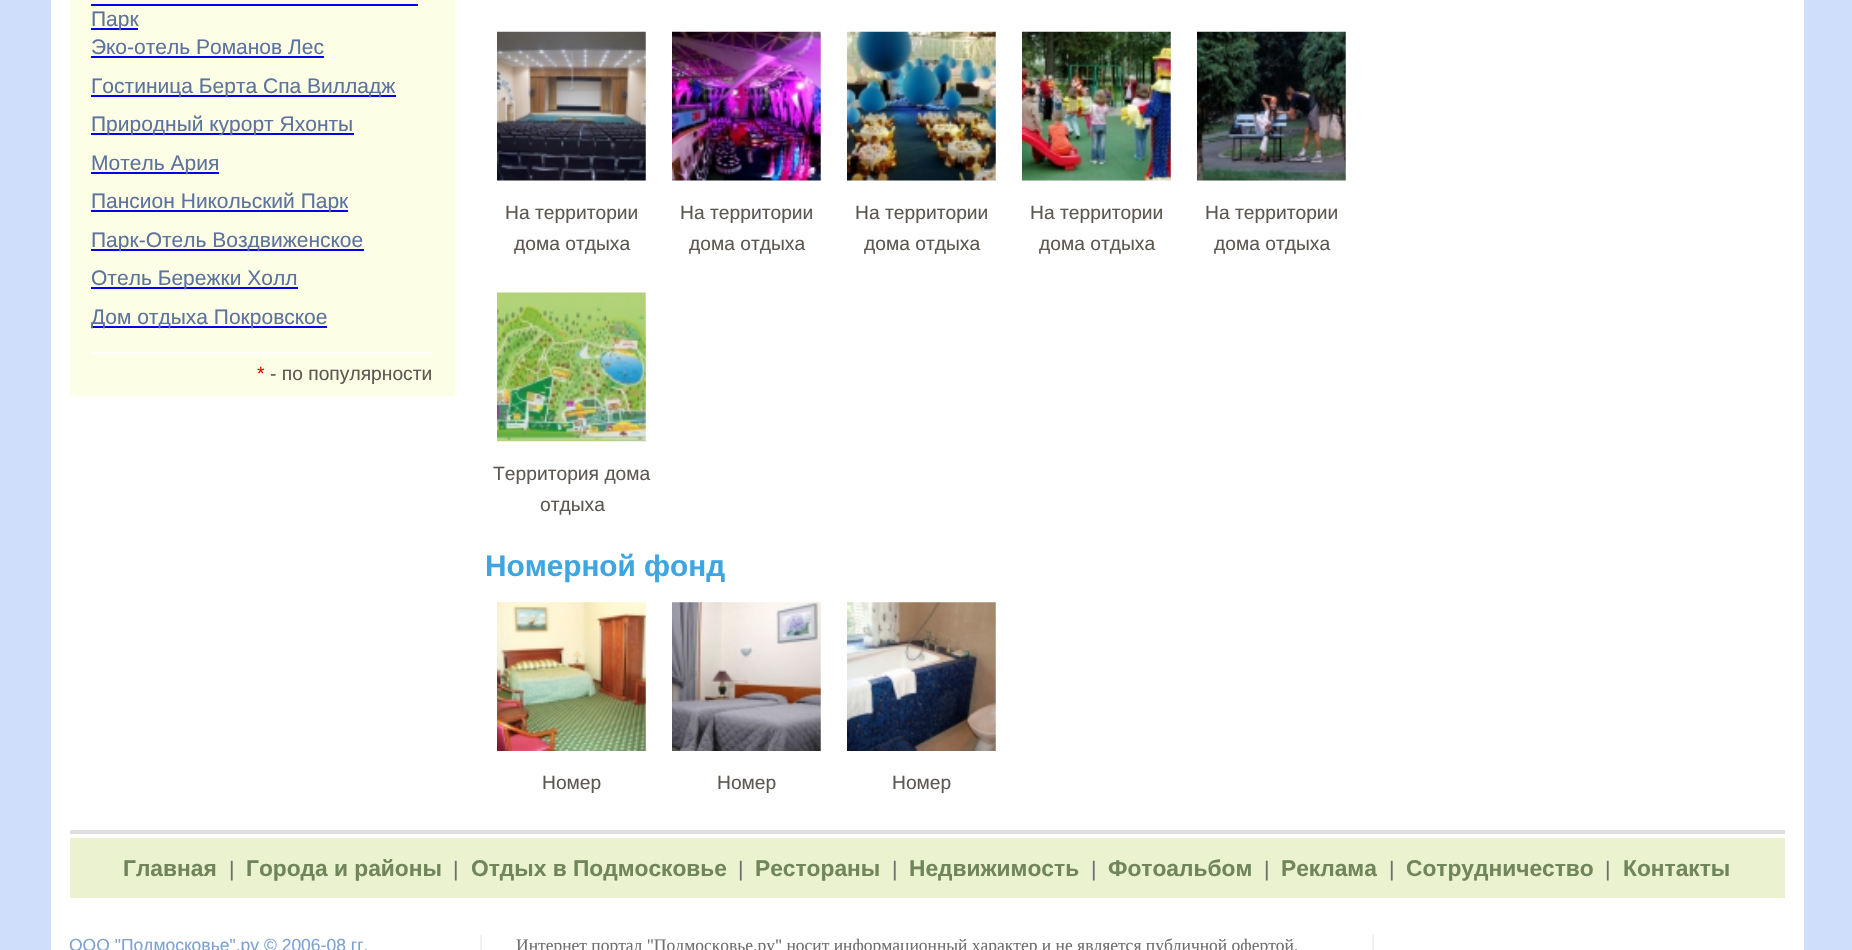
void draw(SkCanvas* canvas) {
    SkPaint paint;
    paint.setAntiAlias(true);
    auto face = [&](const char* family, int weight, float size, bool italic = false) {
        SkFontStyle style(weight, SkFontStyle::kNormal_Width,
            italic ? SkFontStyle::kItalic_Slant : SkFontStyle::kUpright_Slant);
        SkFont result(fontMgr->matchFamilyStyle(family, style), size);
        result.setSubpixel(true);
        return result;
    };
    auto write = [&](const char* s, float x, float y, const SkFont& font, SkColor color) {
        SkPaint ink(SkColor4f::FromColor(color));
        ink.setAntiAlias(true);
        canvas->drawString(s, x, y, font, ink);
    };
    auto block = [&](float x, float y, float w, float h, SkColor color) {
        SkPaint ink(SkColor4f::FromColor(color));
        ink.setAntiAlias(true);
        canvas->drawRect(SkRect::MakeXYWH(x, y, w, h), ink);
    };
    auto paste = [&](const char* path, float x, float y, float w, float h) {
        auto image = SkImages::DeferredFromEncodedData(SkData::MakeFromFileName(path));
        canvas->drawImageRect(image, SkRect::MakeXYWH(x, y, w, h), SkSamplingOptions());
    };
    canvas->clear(SkColorSetRGB(207, 223, 251));
    block(51, 0, 1753, 950, SK_ColorWHITE);
    block(70, 0, 385, 396, SkColorSetRGB(253, 254, 230));
    block(91, 28, 47, 2, SkColorSetRGB(0, 0, 238));
    auto kFont1 = face("Liberation Sans", 400, 21);
    write("Парк", 91, 26, kFont1, SkColorSetRGB(93, 114, 157));
    block(91, 4, 327, 2, SkColorSetRGB(0, 0, 238));
    write("Эко-отель Романов Лес", 91, 54, kFont1, SkColorSetRGB(93, 114, 157));
    block(91, 56, 233, 2, SkColorSetRGB(0, 0, 238));
    block(91, 95, 305, 2, SkColorSetRGB(0, 0, 238));
    write("Гостиница Берта Спа Вилладж", 91, 93, kFont1, SkColorSetRGB(93, 114, 157));
    block(91, 133, 263, 2, SkColorSetRGB(0, 0, 238));
    write("Природный курорт Яхонты", 91, 131, kFont1, SkColorSetRGB(93, 114, 157));
    block(91, 172, 128, 2, SkColorSetRGB(0, 0, 238));
    write("Мотель Ария", 91, 170, kFont1, SkColorSetRGB(93, 114, 157));
    block(91, 210, 257, 2, SkColorSetRGB(0, 0, 238));
    write("Пансион Никольский Парк", 91, 208, kFont1, SkColorSetRGB(93, 114, 157));
    block(91, 249, 273, 2, SkColorSetRGB(0, 0, 238));
    write("Парк-Отель Воздвиженское", 91, 247, kFont1, SkColorSetRGB(93, 114, 157));
    block(91, 287, 207, 2, SkColorSetRGB(0, 0, 238));
    write("Отель Бережки Холл", 91, 285, kFont1, SkColorSetRGB(93, 114, 157));
    block(91, 326, 236, 2, SkColorSetRGB(0, 0, 238));
    write("Дом отдыха Покровское", 91, 324, kFont1, SkColorSetRGB(93, 114, 157));
    block(91, 352, 341, 2, SK_ColorWHITE);
    auto kFont2 = face("Liberation Sans", 400, 19.25f);
    write("*", 257, 380, kFont2, SkColorSetRGB(255, 0, 0));
    write("- по популярности", 270, 380, kFont2, SkColorSetRGB(92, 87, 80));
    paste("pic1.png", 497, 31, 149, 150);
    paste("pic2.png", 672, 31, 149, 150);
    paste("pic3.png", 847, 31, 149, 150);
    paste("pic4.png", 1022, 31, 149, 150);
    paste("pic5.png", 1197, 31, 149, 150);
    write("На территории", 505, 219, kFont2, SkColorSetRGB(92, 87, 80));
    write("дома отдыха", 514, 250, kFont2, SkColorSetRGB(92, 87, 80));
    write("На территории", 680, 219, kFont2, SkColorSetRGB(92, 87, 80));
    write("дома отдыха", 689, 250, kFont2, SkColorSetRGB(92, 87, 80));
    write("На территории", 855, 219, kFont2, SkColorSetRGB(92, 87, 80));
    write("дома отдыха", 864, 250, kFont2, SkColorSetRGB(92, 87, 80));
    write("На территории", 1030, 219, kFont2, SkColorSetRGB(92, 87, 80));
    write("дома отдыха", 1039, 250, kFont2, SkColorSetRGB(92, 87, 80));
    write("На территории", 1205, 219, kFont2, SkColorSetRGB(92, 87, 80));
    write("дома отдыха", 1214, 250, kFont2, SkColorSetRGB(92, 87, 80));
    paste("pic6.png", 497, 292, 149, 150);
    write("Территория дома", 493, 480, kFont2, SkColorSetRGB(92, 87, 80));
    write("отдыха", 540, 511, kFont2, SkColorSetRGB(92, 87, 80));
    auto kFont3 = face("Liberation Sans", 700, 29.75f);
    write("Номерной фонд", 485, 576, kFont3, SkColorSetRGB(61, 166, 226));
    paste("pic7.png", 497, 602, 149, 149);
    paste("pic8.png", 672, 602, 149, 149);
    paste("pic9.png", 847, 602, 149, 149);
    write("Номер", 542, 789, kFont2, SkColorSetRGB(92, 87, 80));
    write("Номер", 717, 789, kFont2, SkColorSetRGB(92, 87, 80));
    write("Номер", 892, 789, kFont2, SkColorSetRGB(92, 87, 80));
    block(70, 830, 1715, 4, SkColorSetRGB(223, 223, 223));
    block(70, 838, 1715, 60, SkColorSetRGB(235, 242, 208));
    auto kFont4 = face("Liberation Sans", 700, 22.75f);
    write("Главная", 123, 876, kFont4, SkColorSetRGB(112, 133, 90));
    write("|", 229, 876, kFont1, SkColorSetRGB(111, 111, 111));
    write("Города и районы", 246, 876, kFont4, SkColorSetRGB(112, 133, 90));
    write("|", 453, 876, kFont1, SkColorSetRGB(111, 111, 111));
    write("Отдых в Подмосковье", 471, 876, kFont4, SkColorSetRGB(112, 133, 90));
    write("|", 738, 876, kFont1, SkColorSetRGB(111, 111, 111));
    write("Рестораны", 755, 876, kFont4, SkColorSetRGB(112, 133, 90));
    write("|", 892, 876, kFont1, SkColorSetRGB(111, 111, 111));
    write("Недвижимость", 909, 876, kFont4, SkColorSetRGB(112, 133, 90));
    write("|", 1091, 876, kFont1, SkColorSetRGB(111, 111, 111));
    write("Фотоальбом", 1108, 876, kFont4, SkColorSetRGB(112, 133, 90));
    write("|", 1264, 876, kFont1, SkColorSetRGB(111, 111, 111));
    write("Реклама", 1281, 876, kFont4, SkColorSetRGB(112, 133, 90));
    write("|", 1389, 876, kFont1, SkColorSetRGB(111, 111, 111));
    write("Сотрудничество", 1406, 876, kFont4, SkColorSetRGB(112, 133, 90));
    write("|", 1605, 876, kFont1, SkColorSetRGB(111, 111, 111));
    write("Контакты", 1623, 876, kFont4, SkColorSetRGB(112, 133, 90));
    auto kFont5 = face("Liberation Sans", 400, 17.5f);
    write("ООО \"Подмосковье\".ру © 2006-08 гг.", 69, 951, kFont5, SkColorSetRGB(125, 161, 211));
    block(480, 935, 2, 15, SkColorSetRGB(241, 241, 241));
    auto kFont6 = face("Liberation Serif", 400, 17.5f);
    write("Интернет портал \"Подмосковье.ру\" носит информационный характер и не является публичной офертой,", 516, 951, kFont6, SkColorSetRGB(111, 111, 111));
    block(1372, 935, 2, 15, SkColorSetRGB(241, 241, 241));
}
